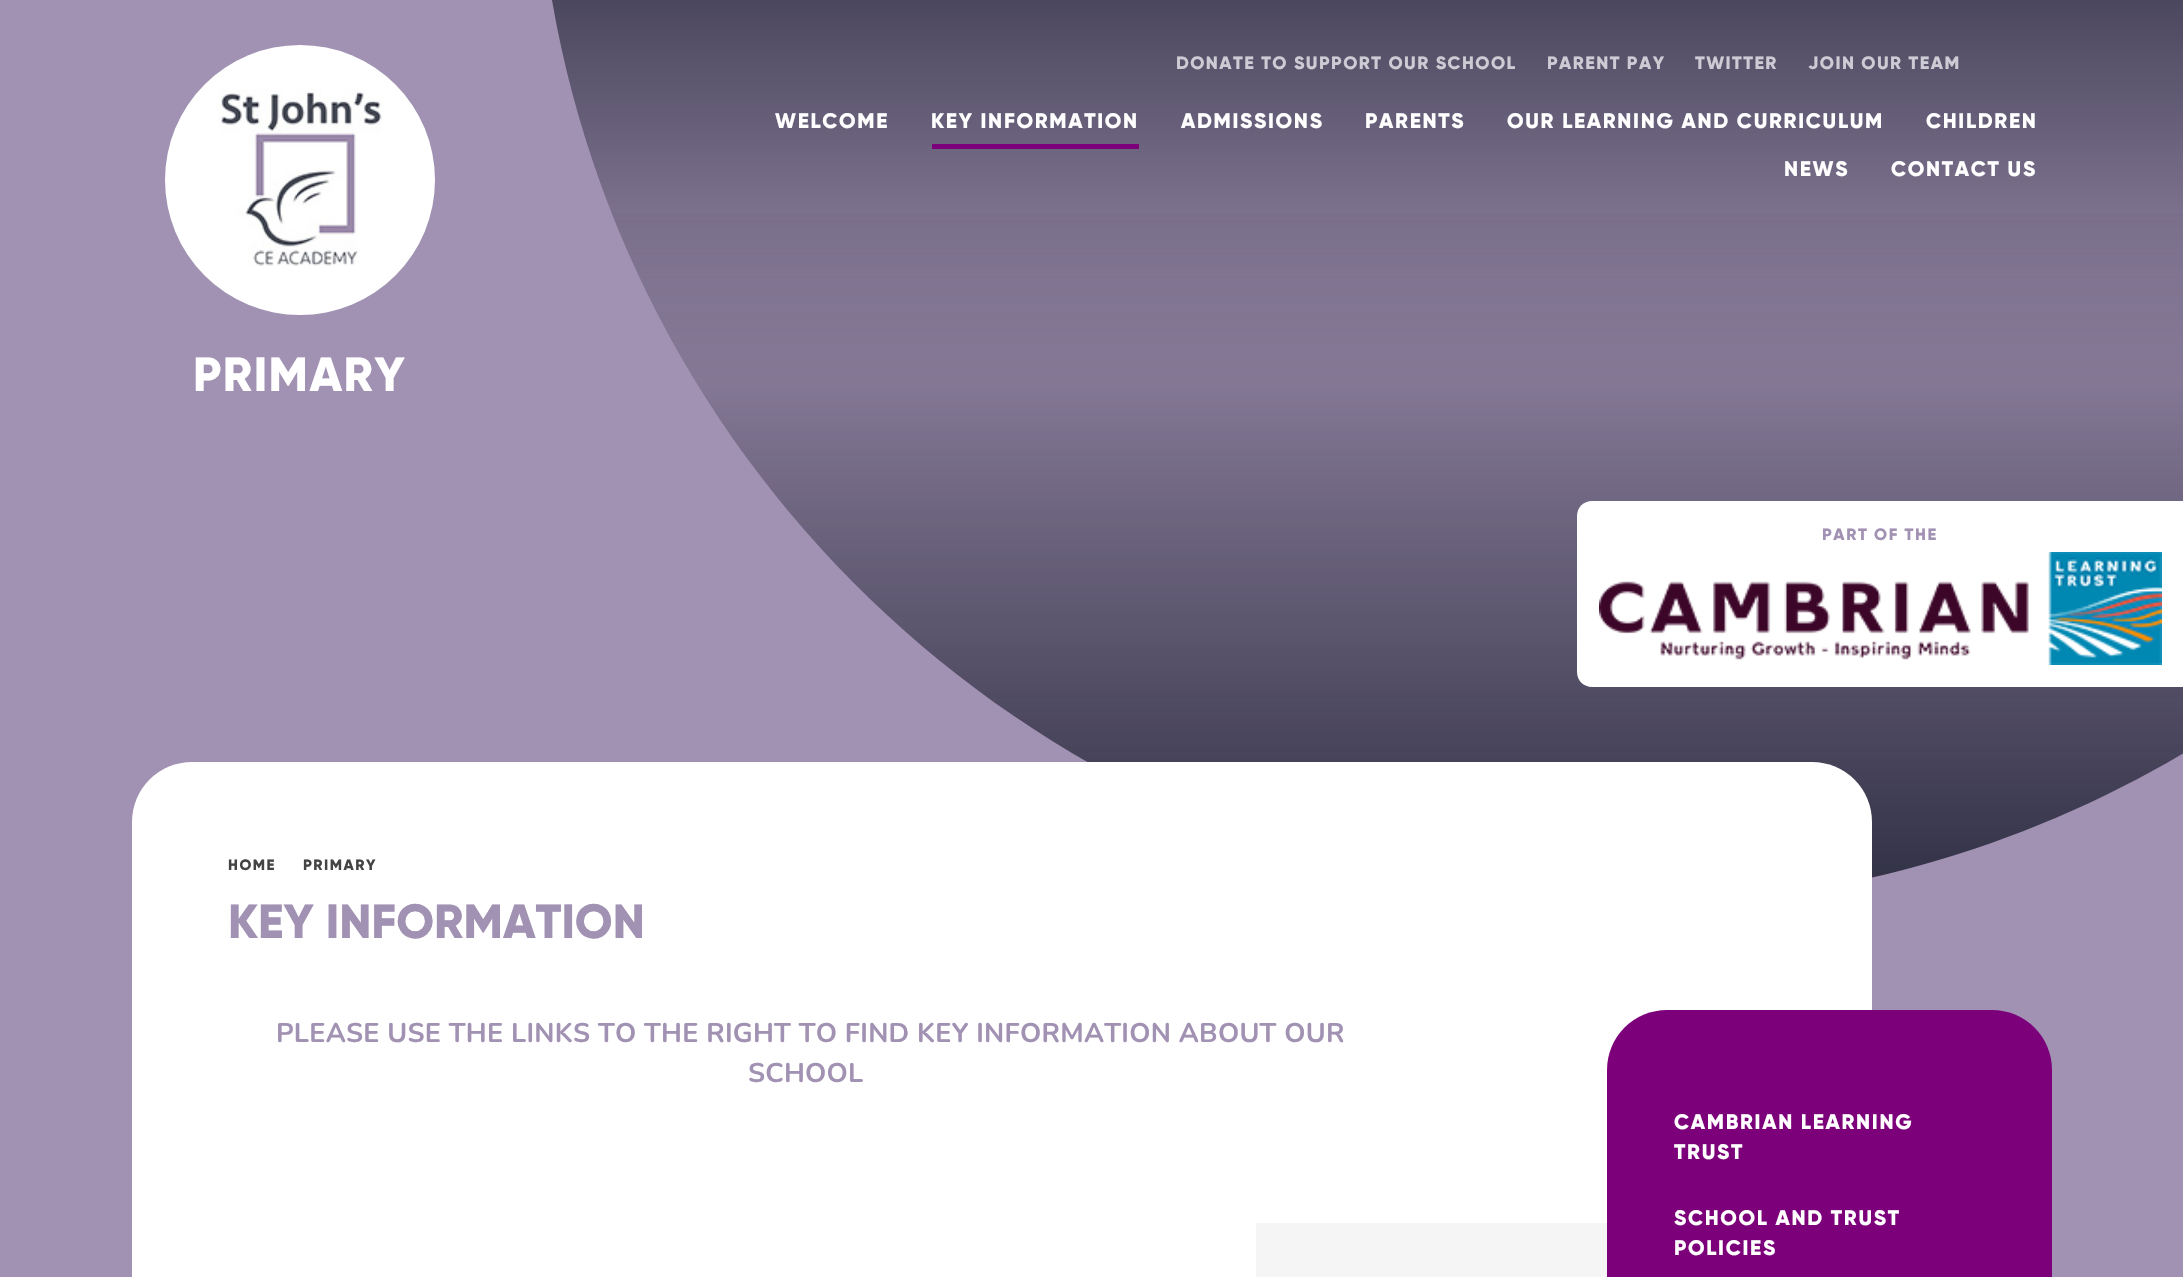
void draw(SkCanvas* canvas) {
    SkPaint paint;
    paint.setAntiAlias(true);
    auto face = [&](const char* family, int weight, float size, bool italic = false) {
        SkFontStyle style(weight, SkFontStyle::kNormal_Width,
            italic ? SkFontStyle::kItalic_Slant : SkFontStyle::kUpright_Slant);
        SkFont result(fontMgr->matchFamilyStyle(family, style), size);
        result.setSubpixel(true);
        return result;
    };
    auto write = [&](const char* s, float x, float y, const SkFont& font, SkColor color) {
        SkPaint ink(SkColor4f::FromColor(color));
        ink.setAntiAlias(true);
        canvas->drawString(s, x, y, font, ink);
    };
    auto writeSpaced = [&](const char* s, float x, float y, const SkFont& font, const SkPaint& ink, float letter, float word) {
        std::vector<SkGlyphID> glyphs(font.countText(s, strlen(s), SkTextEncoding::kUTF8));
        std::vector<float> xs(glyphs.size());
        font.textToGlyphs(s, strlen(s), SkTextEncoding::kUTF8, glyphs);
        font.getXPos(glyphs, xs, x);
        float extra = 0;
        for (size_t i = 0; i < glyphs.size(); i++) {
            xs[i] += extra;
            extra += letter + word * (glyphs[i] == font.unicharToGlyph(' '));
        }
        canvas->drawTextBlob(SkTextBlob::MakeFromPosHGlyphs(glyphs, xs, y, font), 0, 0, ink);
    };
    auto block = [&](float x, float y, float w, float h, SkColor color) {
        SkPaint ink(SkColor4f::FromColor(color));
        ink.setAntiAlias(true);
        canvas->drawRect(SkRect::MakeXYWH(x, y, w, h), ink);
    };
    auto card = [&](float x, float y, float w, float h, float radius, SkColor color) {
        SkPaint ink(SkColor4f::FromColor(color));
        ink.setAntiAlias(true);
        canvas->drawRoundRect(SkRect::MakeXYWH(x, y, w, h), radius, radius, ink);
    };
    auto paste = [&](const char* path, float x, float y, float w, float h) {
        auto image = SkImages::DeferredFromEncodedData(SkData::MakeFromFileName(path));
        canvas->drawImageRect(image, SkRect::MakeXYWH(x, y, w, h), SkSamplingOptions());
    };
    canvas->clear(SkColorSetRGB(161, 145, 178));
    canvas->save();
    canvas->clipPath(SkPathBuilder().moveTo(1628, -1279).cubicTo(2231, -1279, 2720, -790, 2720, -187).cubicTo(2720, 416, 2231, 905, 1628, 905).cubicTo(1025, 905, 536, 416, 536, -187).cubicTo(536, -790, 1025, -1279, 1628, -1279).close().detach(), true);
    {
        const SkColor colors[] = {SkColorSetRGB(75, 71, 94), SkColorSetRGB(160, 144, 177)};
        const float stops[] = {0, 1};
        const SkPoint ends[] = {{1628, 0}, {1628, 374}};
        paint.setShader(SkGradientShader::MakeLinear(ends, colors, stops, 2, SkTileMode::kClamp));
        paint.setAlpha(255);
    }
    canvas->drawRect(SkRect::MakeXYWH(552, 0, 1631, 374), paint);
    canvas->restore();
    auto kFont1 = face("Gilroy", 800, 18);
    paint.setShader(nullptr);
    paint.setColor(SkColorSetRGB(205, 203, 211));
    writeSpaced("DONATE TO SUPPORT OUR SCHOOL", 1176, 69, kFont1, paint, 1.45f, 0);
    writeSpaced("PARENT PAY", 1547, 69, kFont1, paint, 1.45f, 0);
    writeSpaced("TWITTER", 1695, 69, kFont1, paint, 1.45f, 0);
    writeSpaced("JOIN OUR TEAM", 1808, 69, kFont1, paint, 1.45f, 0);
    auto kFont2 = face("Gilroy", 800, 21);
    paint.setColor(SK_ColorWHITE);
    writeSpaced("WELCOME", 775, 128, kFont2, paint, 1.7f, 0);
    writeSpaced("KEY INFORMATION", 931, 128, kFont2, paint, 1.7f, 0);
    block(932, 144, 207, 5, SkColorSetRGB(125, 0, 123));
    writeSpaced("ADMISSIONS", 1181, 128, kFont2, paint, 1.7f, 0);
    writeSpaced("PARENTS", 1365, 128, kFont2, paint, 1.7f, 0);
    writeSpaced("OUR LEARNING AND CURRICULUM", 1507, 128, kFont2, paint, 1.7f, 0);
    writeSpaced("CHILDREN", 1926, 128, kFont2, paint, 1.7f, 0);
    writeSpaced("NEWS", 1784, 176, kFont2, paint, 1.7f, 0);
    writeSpaced("CONTACT US", 1891, 176, kFont2, paint, 1.7f, 0);
    canvas->drawCircle(300, 180, 135, paint);
    paste("pic1.png", 218, 89, 164, 177);
    auto kFont3 = face("Gilroy", 800, 48);
    writeSpaced("PRIMARY", 193, 391, kFont3, paint, 1.45f, 0);
    canvas->save();
    canvas->clipPath(SkPathBuilder().moveTo(1628, -1279).cubicTo(2231, -1279, 2720, -790, 2720, -187).cubicTo(2720, 416, 2231, 905, 1628, 905).cubicTo(1025, 905, 536, 416, 536, -187).cubicTo(536, -790, 1025, -1279, 1628, -1279).close().detach(), true);
    {
        const SkColor colors[] = {SkColorSetARGB(204, 18, 22, 39), SkColorSetARGB(0, 18, 22, 39)};
        const float stops[] = {0, 1};
        const SkPoint ends[] = {{1628, 905}, {1628, 194}};
        paint.setShader(SkGradientShader::MakeLinear(ends, colors, stops, 2, SkTileMode::kClamp));
        paint.setAlpha(255);
    }
    canvas->drawRect(SkRect::MakeXYWH(612, 213, 1571, 665), paint);
    canvas->restore();
    paint.setShader(nullptr);
    paint.setColor(SK_ColorWHITE);
    canvas->drawPath(SkPathBuilder().moveTo(1592, 501).lineTo(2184, 501).lineTo(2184, 687).lineTo(1592, 687).cubicTo(1583.5f, 687, 1577, 680.5f, 1577, 672).lineTo(1577, 516).cubicTo(1577, 507.5f, 1583.5f, 501, 1592, 501).close().detach(), paint);
    auto kFont4 = face("Gilroy", 800, 16.5f);
    paint.setColor(SkColorSetRGB(161, 145, 178));
    writeSpaced("PART OF THE", 1822, 540, kFont4, paint, 1.6f, 0);
    paste("pic2.png", 1599, 552, 563, 113);
    card(132, 762, 1740, 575, 60, SK_ColorWHITE);
    block(1256, 1223, 351, 54, SkColorSetRGB(245, 245, 245));
    auto kFont5 = face("Gilroy", 800, 15);
    paint.setColor(SkColorSetRGB(68, 68, 68));
    writeSpaced("HOME", 228, 870, kFont5, paint, 1.5f, 0);
    writeSpaced("PRIMARY", 303, 870, kFont5, paint, 1.5f, 0);
    write("KEY INFORMATION", 228, 938, kFont3, SkColorSetRGB(161, 145, 178));
    auto kFont6 = face("Nunito", 700, 27);
    paint.setColor(SkColorSetRGB(161, 145, 178));
    writeSpaced("PLEASE USE THE LINKS TO THE RIGHT TO FIND KEY INFORMATION ABOUT OUR", 276, 1042, kFont6, paint, 0.27f, 0);
    writeSpaced("SCHOOL", 748, 1082, kFont6, paint, 0.27f, 0);
    card(1607, 1010, 445, 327, 60, SkColorSetRGB(125, 0, 123));
    paint.setColor(SK_ColorWHITE);
    writeSpaced("CAMBRIAN LEARNING", 1674, 1129, kFont2, paint, 1.7f, 0);
    writeSpaced("TRUST", 1674, 1159, kFont2, paint, 1.7f, 0);
    writeSpaced("SCHOOL AND TRUST", 1674, 1225, kFont2, paint, 1.7f, 0);
    writeSpaced("POLICIES", 1674, 1255, kFont2, paint, 1.7f, 0);
}
